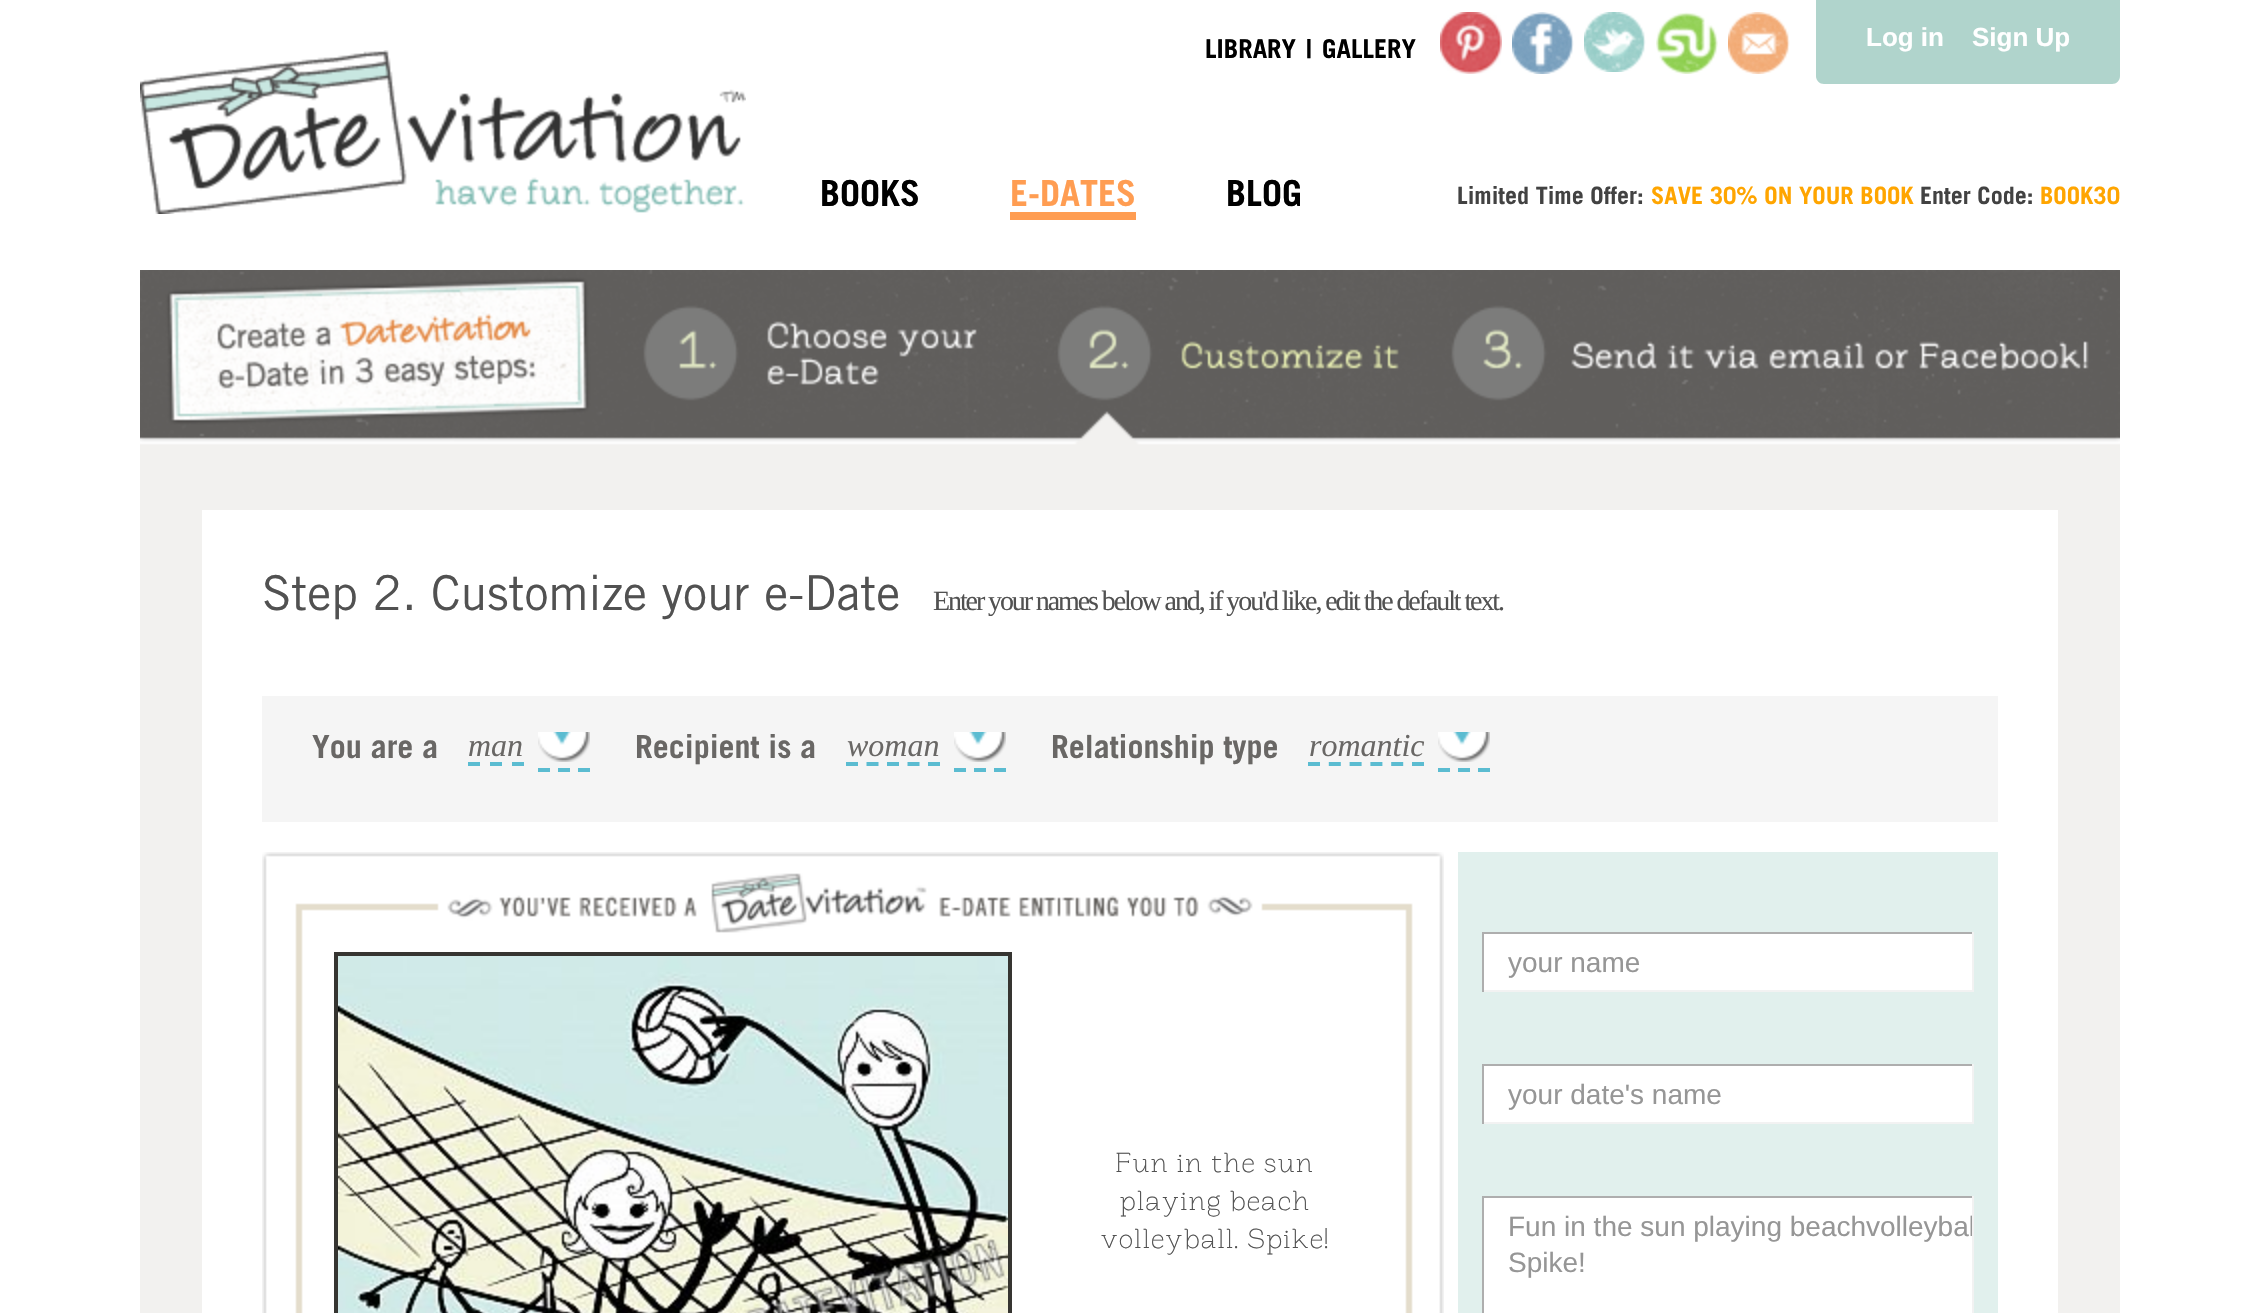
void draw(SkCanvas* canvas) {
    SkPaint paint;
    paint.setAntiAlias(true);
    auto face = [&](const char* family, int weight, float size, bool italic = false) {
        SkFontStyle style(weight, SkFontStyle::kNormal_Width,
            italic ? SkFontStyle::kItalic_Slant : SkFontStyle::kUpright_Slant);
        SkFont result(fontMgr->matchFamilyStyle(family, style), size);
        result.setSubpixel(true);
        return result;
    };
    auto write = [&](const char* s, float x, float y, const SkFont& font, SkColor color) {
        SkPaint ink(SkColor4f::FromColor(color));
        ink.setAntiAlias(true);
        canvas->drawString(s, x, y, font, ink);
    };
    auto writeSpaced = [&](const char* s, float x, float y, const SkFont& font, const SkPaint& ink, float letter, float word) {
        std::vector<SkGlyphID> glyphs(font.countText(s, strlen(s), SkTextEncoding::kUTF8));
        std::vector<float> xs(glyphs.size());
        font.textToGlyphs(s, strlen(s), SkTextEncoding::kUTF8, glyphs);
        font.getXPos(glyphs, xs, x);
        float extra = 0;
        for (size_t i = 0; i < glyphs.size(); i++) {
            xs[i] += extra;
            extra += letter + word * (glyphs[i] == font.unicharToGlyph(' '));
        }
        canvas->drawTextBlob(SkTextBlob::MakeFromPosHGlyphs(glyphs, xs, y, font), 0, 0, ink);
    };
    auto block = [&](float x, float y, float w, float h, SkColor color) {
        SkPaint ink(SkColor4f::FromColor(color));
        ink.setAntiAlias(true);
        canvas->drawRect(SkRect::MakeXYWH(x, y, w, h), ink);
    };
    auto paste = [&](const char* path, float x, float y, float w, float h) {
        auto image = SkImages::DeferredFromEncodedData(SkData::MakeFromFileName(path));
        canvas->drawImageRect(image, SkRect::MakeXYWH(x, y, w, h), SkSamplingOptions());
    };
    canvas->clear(SK_ColorWHITE);
    auto kFont1 = face("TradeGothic", 700, 26);
    write("LIBRARY", 1205, 58, kFont1, SK_ColorBLACK);
    write("|", 1306, 58, kFont1, SK_ColorBLACK);
    write("GALLERY", 1322, 58, kFont1, SK_ColorBLACK);
    paste("pic1.png", 1440, 12, 62, 62);
    paste("pic2.png", 1512, 12, 62, 62);
    paste("pic3.png", 1584, 12, 62, 60);
    paste("pic4.png", 1656, 12, 62, 62);
    paste("pic5.png", 1728, 12, 62, 62);
    paint.setColor(SkColorSetRGB(176, 212, 204));
    canvas->drawPath(SkPathBuilder().moveTo(1816, 0).lineTo(2120, 0).lineTo(2120, 76).cubicTo(2120, 80.5f, 2116.5f, 84, 2112, 84).lineTo(1824, 84).cubicTo(1819.5f, 84, 1816, 80.5f, 1816, 76).close().detach(), paint);
    auto kFont2 = face("Liberation Sans", 700, 26);
    write("Log in", 1866, 46, kFont2, SK_ColorWHITE);
    write("Sign Up", 1972, 46, kFont2, SK_ColorWHITE);
    paste("pic6.png", 140, 50, 606, 164);
    auto kFont3 = face("TradeGothic", 700, 36);
    write("BOOKS", 820, 206, kFont3, SK_ColorBLACK);
    block(1010, 212, 126, 8, SkColorSetRGB(255, 157, 82));
    write("E-DATES", 1010, 206, kFont3, SkColorSetRGB(255, 157, 82));
    write("BLOG", 1226, 206, kFont3, SK_ColorBLACK);
    auto kFont4 = face("TradeGothic", 700, 24);
    write("Limited Time Offer:", 1457, 204, kFont4, SkColorSetRGB(66, 66, 66));
    write("SAVE 30% ON YOUR BOOK", 1651, 204, kFont4, SkColorSetRGB(255, 165, 0));
    write("Enter Code:", 1920, 204, kFont4, SkColorSetRGB(66, 66, 66));
    write("BOOK30", 2040, 204, kFont4, SkColorSetRGB(255, 165, 0));
    paste("pic7.png", 140, 270, 1980, 178);
    paint.setStyle(SkPaint::kStroke_Style);
    paint.setStrokeWidth(62);
    paint.setColor(SkColorSetRGB(242, 241, 239));
    canvas->drawRect(SkRect::MakeXYWH(171, 479, 1918, 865), paint);
    auto kFont5 = face("TradeGothic", 500, 48);
    write("Step 2. Customize your e-Date", 262, 610, kFont5, SkColorSetRGB(81, 81, 81));
    auto kFont6 = face("Liberation Serif", 400, 28);
    paint.setStyle(SkPaint::kFill_Style);
    paint.setColor(SkColorSetRGB(81, 81, 81));
    writeSpaced("Enter your names below and, if you'd like, edit the default text.", 933, 610, kFont6, paint, -2.1f, 0);
    block(262, 696, 1736, 126, SkColorSetRGB(245, 245, 245));
    auto kFont7 = face("TradeGothic", 700, 32);
    write("You are a", 312, 758, kFont7, SkColorSetRGB(105, 103, 101));
    auto kFont8 = face("Liberation Serif", 400, 32, true);
    write("man", 468, 756, kFont8, SkColorSetRGB(105, 103, 101));
    paint.setStyle(SkPaint::kStroke_Style);
    paint.setStrokeWidth(4);
    paint.setColor(SkColorSetRGB(91, 188, 209));
    canvas->drawPath(SkPathBuilder().moveTo(468, 764).lineTo(480, 764).moveTo(490, 764).lineTo(502, 764).moveTo(512, 764).lineTo(524, 764).detach(), paint);
    canvas->drawPath(SkPathBuilder().moveTo(538, 770).lineTo(550, 770).moveTo(558, 770).lineTo(570, 770).moveTo(578, 770).lineTo(590, 770).detach(), paint);
    paste("pic8.png", 538, 732, 52, 30);
    write("Recipient is a", 635, 758, kFont7, SkColorSetRGB(105, 103, 101));
    write("woman", 847, 756, kFont8, SkColorSetRGB(105, 103, 101));
    paint.setPathEffect(SkDashPathEffect::Make({{12, 8.5f}}, 0));
    canvas->drawPath(SkPathBuilder().moveTo(846, 764).lineTo(940, 764).detach(), paint);
    paint.setPathEffect(nullptr);
    canvas->drawPath(SkPathBuilder().moveTo(954, 770).lineTo(966, 770).moveTo(974, 770).lineTo(986, 770).moveTo(994, 770).lineTo(1006, 770).detach(), paint);
    paste("pic8.png", 954, 732, 52, 30);
    write("Relationship type", 1051, 758, kFont7, SkColorSetRGB(105, 103, 101));
    write("romantic", 1309, 756, kFont8, SkColorSetRGB(105, 103, 101));
    paint.setPathEffect(SkDashPathEffect::Make({{12, 8.8f}}, 0));
    canvas->drawPath(SkPathBuilder().moveTo(1308, 764).lineTo(1424, 764).detach(), paint);
    paint.setPathEffect(nullptr);
    canvas->drawPath(SkPathBuilder().moveTo(1438, 770).lineTo(1450, 770).moveTo(1458, 770).lineTo(1470, 770).moveTo(1478, 770).lineTo(1490, 770).detach(), paint);
    paste("pic8.png", 1438, 732, 52, 30);
    paste("pic9.png", 262, 852, 1182, 461);
    paste("pic10.png", 338, 956, 670, 357);
    paint.setColor(SkColorSetRGB(54, 53, 49));
    canvas->drawRect(SkRect::MakeXYWH(336, 954, 674, 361), paint);
    auto kFont9 = face("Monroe", 300, 26);
    write("Fun in the sun", 1115, 1172, kFont9, SkColorSetRGB(81, 81, 81));
    write("playing beach", 1119, 1210, kFont9, SkColorSetRGB(81, 81, 81));
    write("volleyball. Spike!", 1100, 1248, kFont9, SkColorSetRGB(81, 81, 81));
    paste("pic11.png", 745, 1239, 260, 74);
    block(1458, 852, 540, 461, SkColorSetRGB(225, 240, 237));
    block(1484, 934, 488, 56, SK_ColorWHITE);
    block(1482, 932, 492, 2, SkColorSetRGB(174, 174, 174));
    block(1972, 932, 2, 60, SkColorSetRGB(242, 242, 242));
    block(1482, 990, 492, 2, SkColorSetRGB(242, 242, 242));
    block(1482, 932, 2, 60, SkColorSetRGB(174, 174, 174));
    auto kFont10 = face("Liberation Sans", 400, 28);
    write("your name", 1508, 972, kFont10, SkColorSetRGB(150, 150, 150));
    block(1484, 1066, 488, 56, SK_ColorWHITE);
    block(1482, 1064, 492, 2, SkColorSetRGB(174, 174, 174));
    block(1972, 1064, 2, 60, SkColorSetRGB(242, 242, 242));
    block(1482, 1122, 492, 2, SkColorSetRGB(242, 242, 242));
    block(1482, 1064, 2, 60, SkColorSetRGB(174, 174, 174));
    write("your date's name", 1508, 1104, kFont10, SkColorSetRGB(150, 150, 150));
    block(1484, 1198, 488, 115, SK_ColorWHITE);
    block(1482, 1196, 492, 2, SkColorSetRGB(174, 174, 174));
    block(1972, 1196, 2, 117, SkColorSetRGB(242, 242, 242));
    block(1482, 1196, 2, 117, SkColorSetRGB(174, 174, 174));
    write("Fun in the sun playing beach", 1508, 1236, kFont10, SkColorSetRGB(150, 150, 150));
    canvas->save();
    canvas->clipRect(SkRect::MakeXYWH(1484, 1198, 488, 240));
    write("volleybal", 1866, 1236, kFont10, SkColorSetRGB(150, 150, 150));
    canvas->restore();
    write("Spike!", 1508, 1272, kFont10, SkColorSetRGB(150, 150, 150));
}
